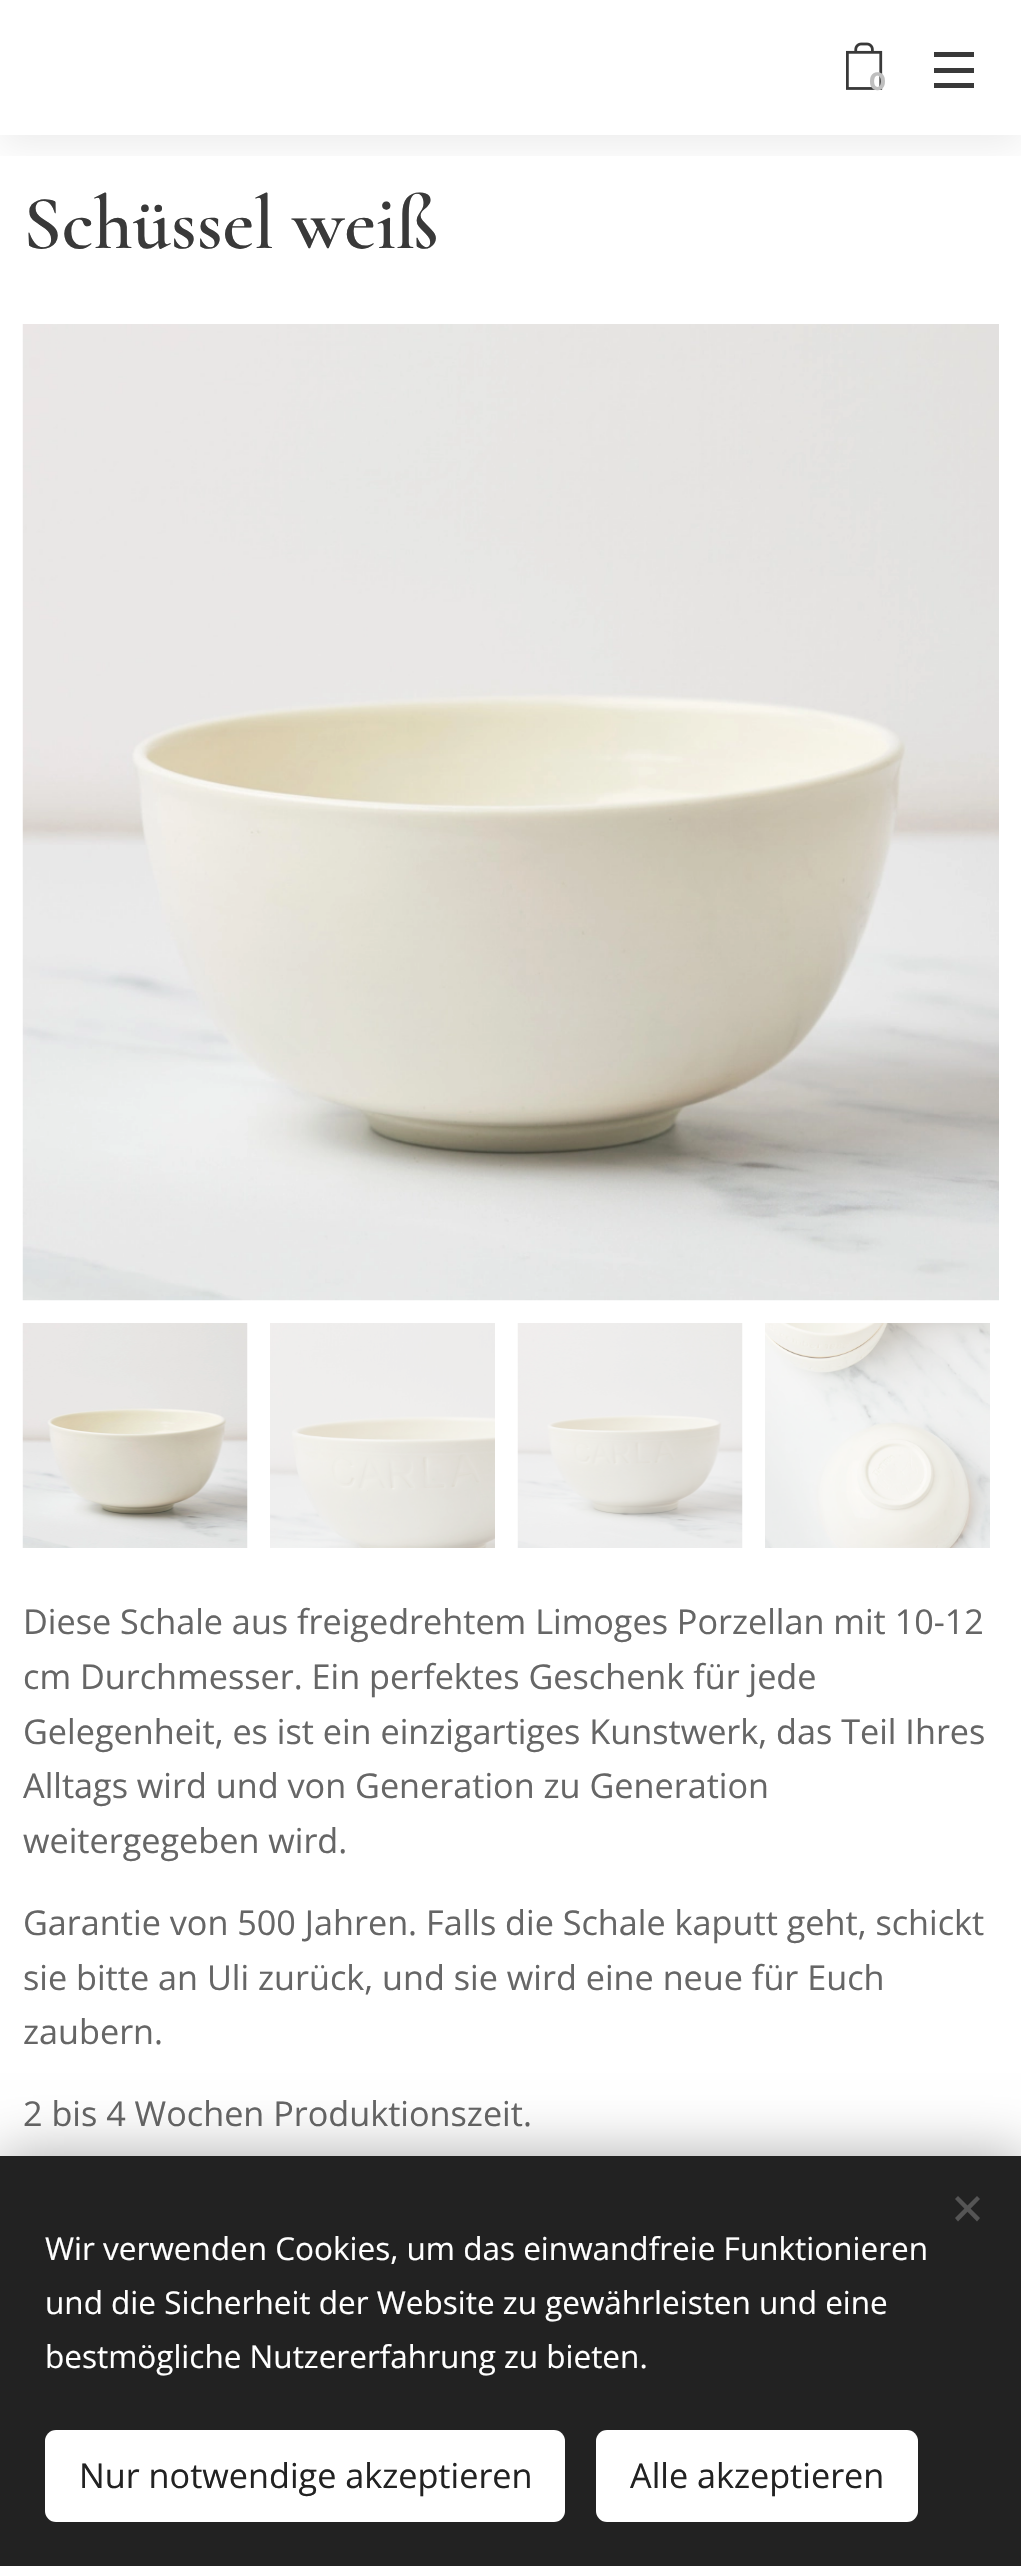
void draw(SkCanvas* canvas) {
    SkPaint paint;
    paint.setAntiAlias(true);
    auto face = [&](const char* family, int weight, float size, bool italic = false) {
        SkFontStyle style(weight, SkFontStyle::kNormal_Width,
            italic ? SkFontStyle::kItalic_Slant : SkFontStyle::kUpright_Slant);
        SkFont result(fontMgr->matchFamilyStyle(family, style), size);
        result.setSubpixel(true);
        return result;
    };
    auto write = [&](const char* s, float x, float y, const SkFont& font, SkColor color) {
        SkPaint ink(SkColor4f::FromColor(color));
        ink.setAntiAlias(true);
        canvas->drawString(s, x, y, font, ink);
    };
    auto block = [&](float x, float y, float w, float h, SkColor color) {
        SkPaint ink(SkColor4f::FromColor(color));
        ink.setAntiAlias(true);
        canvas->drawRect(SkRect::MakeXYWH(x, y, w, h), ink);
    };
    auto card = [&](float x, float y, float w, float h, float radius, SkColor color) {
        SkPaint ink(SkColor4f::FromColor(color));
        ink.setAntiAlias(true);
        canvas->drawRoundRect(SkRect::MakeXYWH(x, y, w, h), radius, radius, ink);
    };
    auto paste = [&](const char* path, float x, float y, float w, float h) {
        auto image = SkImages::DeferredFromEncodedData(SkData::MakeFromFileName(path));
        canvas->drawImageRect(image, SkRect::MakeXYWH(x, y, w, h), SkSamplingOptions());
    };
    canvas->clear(SK_ColorWHITE);
    canvas->save();
    canvas->clipRect(SkRect::MakeXYWH(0, 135, 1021, 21));
    paint.setColor(SkColorSetARGB(18, 0, 0, 0));
    paint.setMaskFilter(SkMaskFilter::MakeBlur(kNormal_SkBlurStyle, 17));
    canvas->drawRect(SkRect::MakeXYWH(0, 11, 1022, 135), paint);
    paint.setMaskFilter(nullptr);
    canvas->restore();
    paste("pic1.png", 846, 42, 37, 48);
    auto kFont1 = face("Montserrat", 700, 25);
    write("0", 869, 90, kFont1, SkColorSetRGB(191, 191, 191));
    block(934, 68, 40, 5, SkColorSetRGB(57, 57, 57));
    block(934, 52, 40, 5, SkColorSetRGB(57, 57, 57));
    block(934, 83, 40, 5, SkColorSetRGB(57, 57, 57));
    auto kFont2 = face("Cormorant", 600, 76.5f);
    write("Schüssel weiß", 23, 248, kFont2, SkColorSetRGB(57, 57, 57));
    paste("pic2.png", 22, 324, 977, 977);
    paste("pic3.png", 22, 1323, 226, 225);
    paste("pic4.png", 270, 1323, 225, 225);
    paste("pic5.png", 517, 1323, 226, 225);
    paste("pic6.png", 765, 1323, 225, 225);
    auto kFont3 = face("Open Sans", 400, 34.2f);
    write("Diese Schale aus freigedrehtem Limoges Porzellan mit 10-12", 23, 1634, kFont3, SkColorSetRGB(102, 102, 102));
    write("cm Durchmesser. Ein perfektes Geschenk für jede", 23, 1689, kFont3, SkColorSetRGB(102, 102, 102));
    write("Gelegenheit, es ist ein einzigartiges Kunstwerk, das Teil Ihres", 23, 1744, kFont3, SkColorSetRGB(102, 102, 102));
    write("Alltags wird und von Generation zu Generation", 23, 1798, kFont3, SkColorSetRGB(102, 102, 102));
    write("weitergegeben wird.", 23, 1853, kFont3, SkColorSetRGB(102, 102, 102));
    write("Garantie von 500 Jahren. Falls die Schale kaputt geht, schickt", 23, 1935, kFont3, SkColorSetRGB(102, 102, 102));
    write("sie bitte an Uli zurück, und sie wird eine neue für Euch", 23, 1990, kFont3, SkColorSetRGB(102, 102, 102));
    write("zaubern.", 23, 2044, kFont3, SkColorSetRGB(102, 102, 102));
    write("2 bis 4 Wochen Produktionszeit.", 23, 2126, kFont3, SkColorSetRGB(102, 102, 102));
    paint.setColor(SkColorSetARGB(84, 0, 0, 0));
    paint.setMaskFilter(SkMaskFilter::MakeBlur(kNormal_SkBlurStyle, 28));
    canvas->drawRect(SkRect::MakeXYWH(0, 2156, 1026, 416), paint);
    paint.setMaskFilter(nullptr);
    block(0, 2156, 1021, 410, SkColorSetRGB(34, 34, 34));
    paint.setColor(SkColorSetRGB(85, 85, 85));
    canvas->drawPath(SkPathBuilder().moveTo(955, 2218).lineTo(977, 2196).lineTo(980, 2199).lineTo(958, 2221.5f).close().detach(), paint);
    canvas->drawPath(SkPathBuilder().moveTo(958, 2196).lineTo(980, 2218).lineTo(977, 2221.5f).lineTo(955, 2199).close().detach(), paint);
    auto kFont4 = face("Open Sans", 400, 31.5f);
    write("Wir verwenden Cookies, um das einwandfreie Funktionieren", 45, 2260, kFont4, SK_ColorWHITE);
    write("und die Sicherheit der Website zu gewährleisten und eine", 45, 2314, kFont4, SK_ColorWHITE);
    write("bestmögliche Nutzererfahrung zu bieten.", 45, 2368, kFont4, SK_ColorWHITE);
    card(45, 2430, 520, 92, 11, SK_ColorWHITE);
    write("Nur notwendige akzeptieren", 79, 2488, kFont3, SkColorSetRGB(34, 34, 34));
    card(596, 2430, 322, 92, 11, SK_ColorWHITE);
    write("Alle akzeptieren", 630, 2488, kFont3, SkColorSetRGB(34, 34, 34));
}
